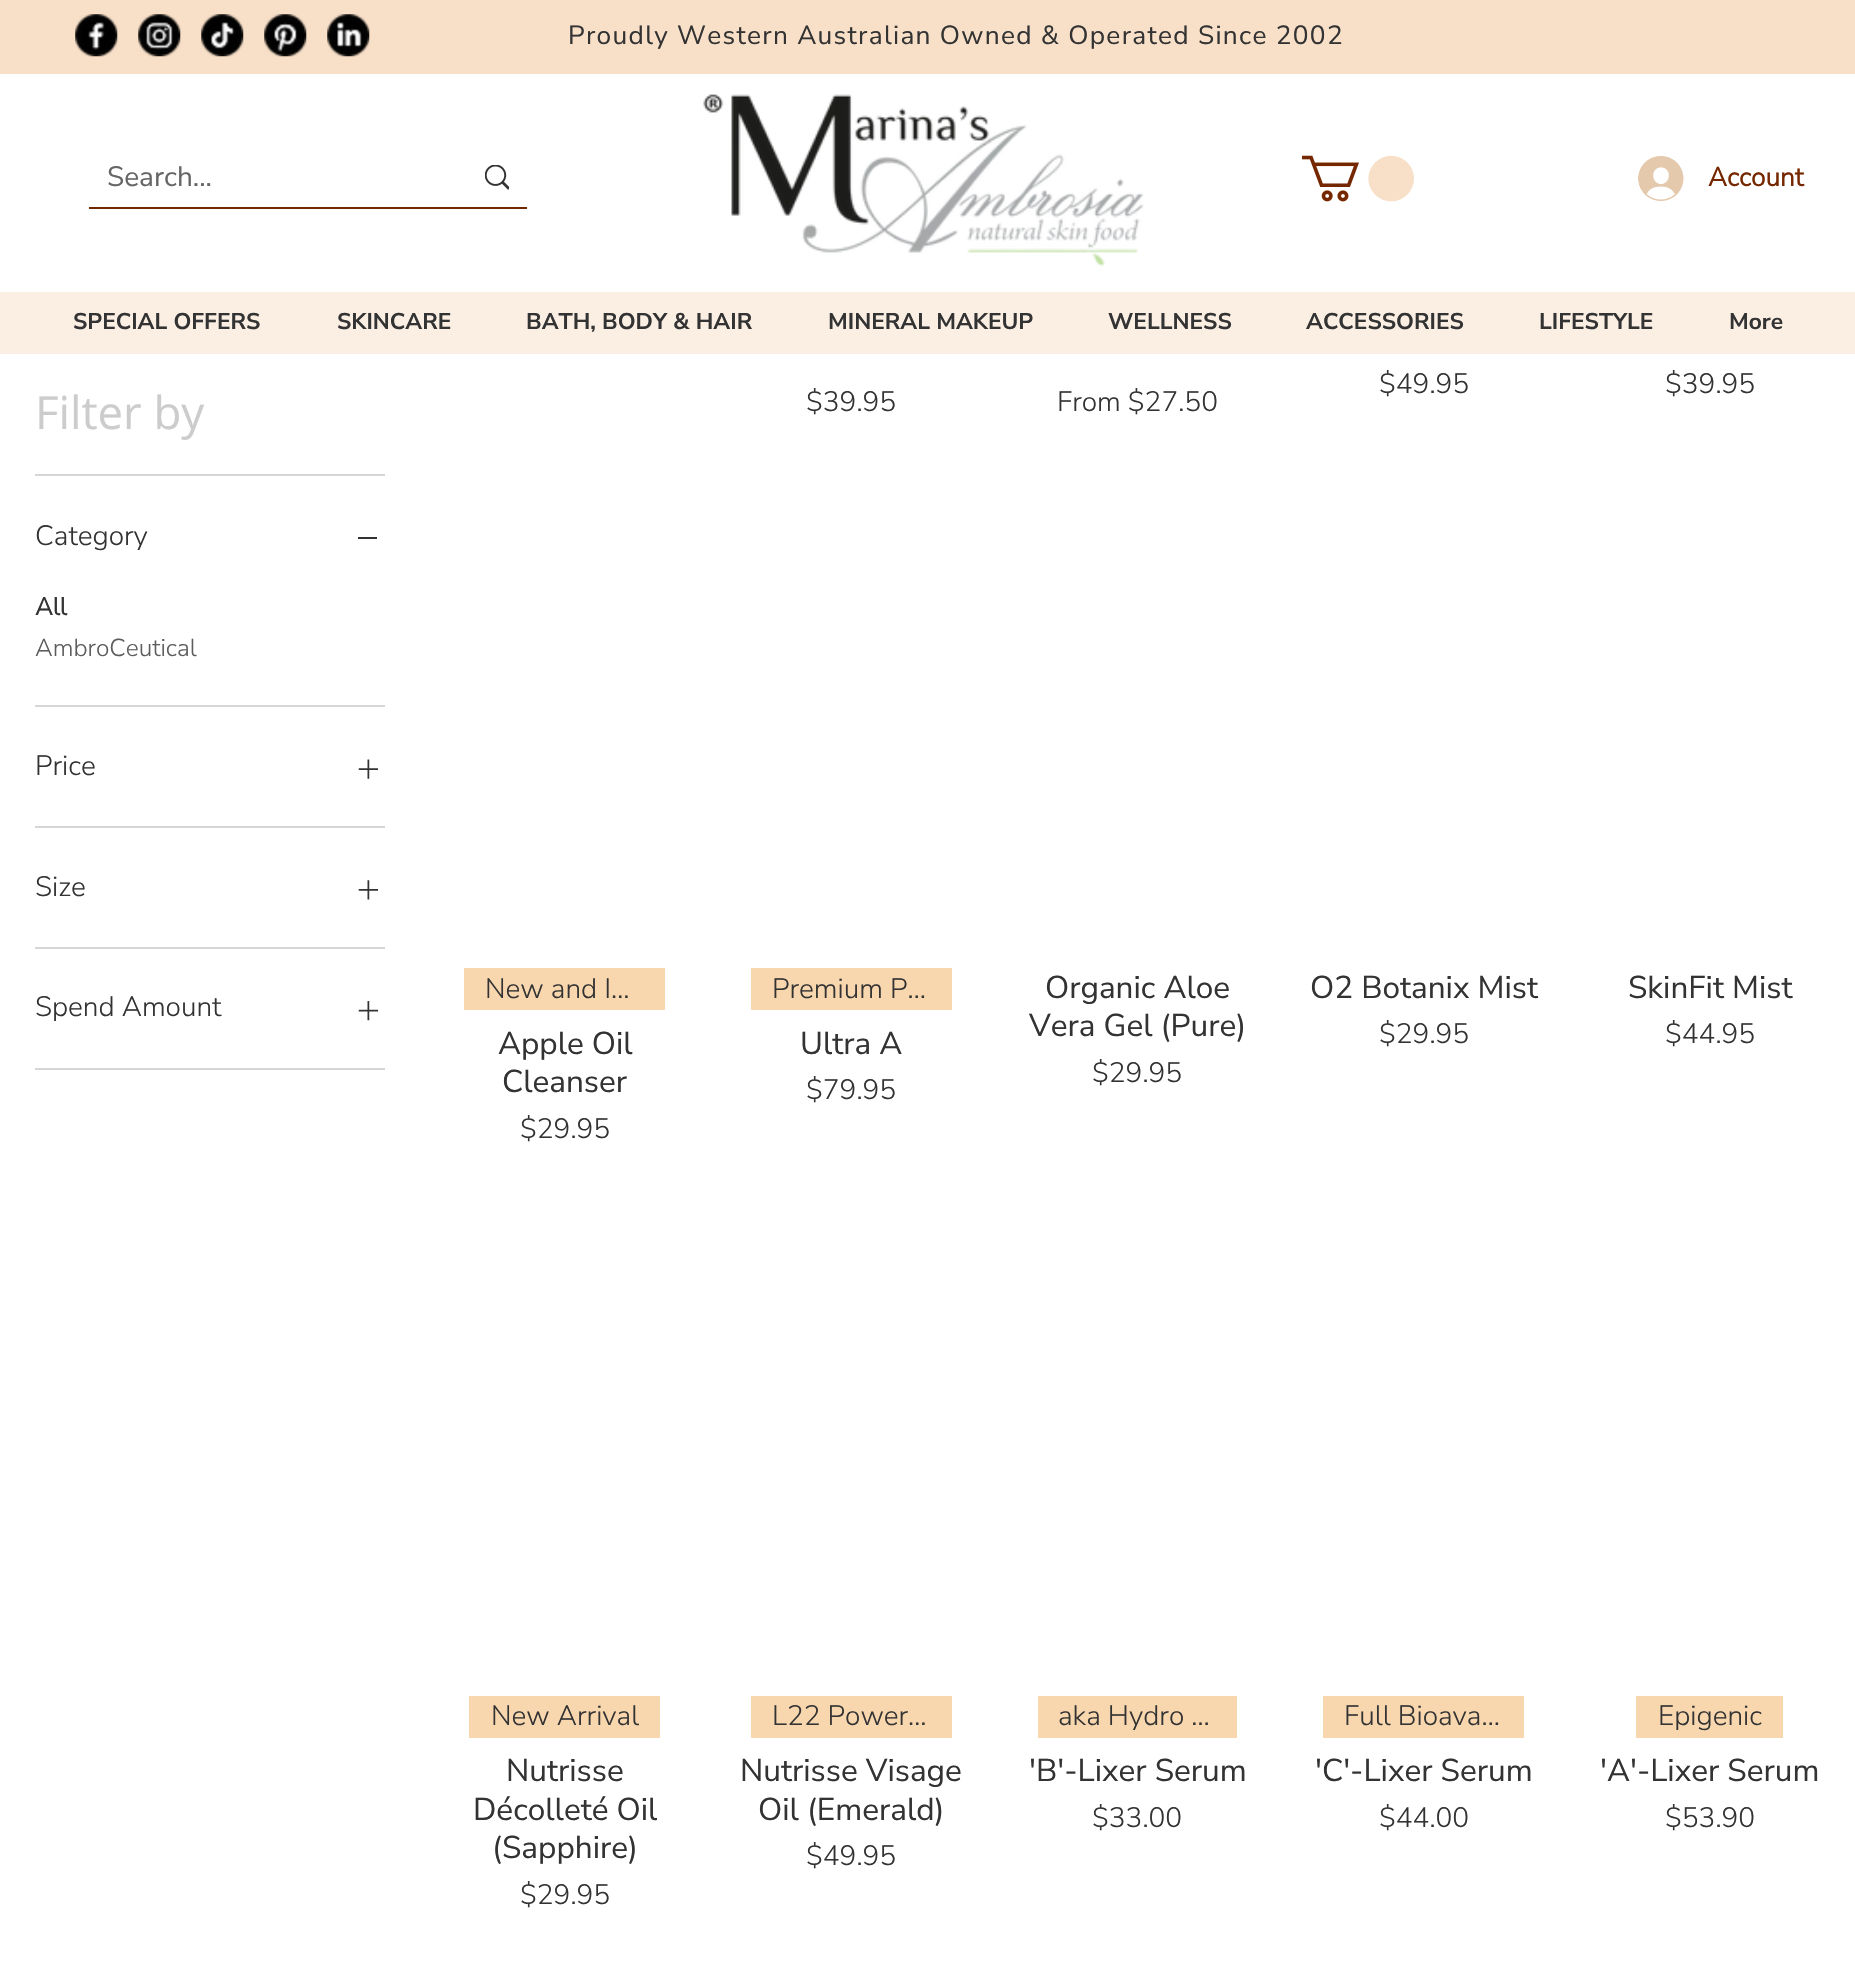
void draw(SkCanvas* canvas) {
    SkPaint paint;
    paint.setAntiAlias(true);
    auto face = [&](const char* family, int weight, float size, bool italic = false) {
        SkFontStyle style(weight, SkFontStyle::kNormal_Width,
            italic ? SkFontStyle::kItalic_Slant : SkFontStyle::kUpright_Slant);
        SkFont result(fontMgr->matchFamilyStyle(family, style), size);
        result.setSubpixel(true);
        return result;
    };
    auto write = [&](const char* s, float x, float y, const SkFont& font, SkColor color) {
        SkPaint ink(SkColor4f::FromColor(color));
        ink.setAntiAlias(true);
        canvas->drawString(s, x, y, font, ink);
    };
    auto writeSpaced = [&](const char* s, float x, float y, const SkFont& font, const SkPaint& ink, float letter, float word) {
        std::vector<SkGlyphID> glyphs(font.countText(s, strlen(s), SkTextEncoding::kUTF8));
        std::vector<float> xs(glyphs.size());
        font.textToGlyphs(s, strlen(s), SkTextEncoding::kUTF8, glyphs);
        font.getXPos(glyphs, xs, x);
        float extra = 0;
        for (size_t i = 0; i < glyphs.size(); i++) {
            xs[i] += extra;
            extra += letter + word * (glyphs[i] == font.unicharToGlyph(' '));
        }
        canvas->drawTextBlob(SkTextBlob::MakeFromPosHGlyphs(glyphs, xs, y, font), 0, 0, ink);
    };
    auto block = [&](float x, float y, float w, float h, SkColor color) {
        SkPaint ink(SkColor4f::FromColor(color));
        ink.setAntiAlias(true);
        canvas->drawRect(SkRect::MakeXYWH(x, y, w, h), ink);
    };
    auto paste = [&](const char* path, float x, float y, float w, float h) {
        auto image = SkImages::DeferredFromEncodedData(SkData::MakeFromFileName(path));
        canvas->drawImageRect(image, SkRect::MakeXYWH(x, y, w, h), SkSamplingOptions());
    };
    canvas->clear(SK_ColorWHITE);
    block(0, 0, 1855, 74, SkColorSetRGB(247, 223, 200));
    paste("pic1.png", 75, 14, 43, 43);
    paste("pic2.png", 138, 14, 43, 43);
    paste("pic3.png", 201, 14, 43, 43);
    paste("pic4.png", 264, 14, 43, 43);
    paste("pic5.png", 327, 14, 43, 43);
    auto kFont1 = face("Nunito Sans", 400, 26.25f);
    paint.setColor(SkColorSetRGB(51, 51, 51));
    writeSpaced("Proudly Western Australian Owned & Operated Since 2002", 568, 44, kFont1, paint, 1.3f, 0);
    block(89, 207, 438, 2, SkColorSetRGB(117, 40, 0));
    auto kFont2 = face("Nunito Sans", 400, 28);
    write("Search...", 107, 186, kFont2, SkColorSetRGB(102, 102, 102));
    paste("pic6.png", 485, 165, 24, 25);
    paste("pic7.png", 703, 94, 441, 173);
    paste("pic8.png", 1302, 155, 112, 47);
    paste("pic9.png", 1638, 156, 46, 45);
    auto kFont3 = face("Nunito Sans", 700, 26.25f);
    write("Account", 1708, 186, kFont3, SkColorSetRGB(117, 40, 0));
    block(0, 292, 1855, 62, SkColorSetRGB(251, 239, 228));
    auto kFont4 = face("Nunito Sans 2", 700, 22.75f);
    write("SPECIAL OFFERS", 73, 329, kFont4, SkColorSetRGB(51, 51, 51));
    write("SKINCARE", 337, 329, kFont4, SkColorSetRGB(51, 51, 51));
    write("BATH, BODY & HAIR", 526, 329, kFont4, SkColorSetRGB(51, 51, 51));
    write("MINERAL MAKEUP", 828, 329, kFont4, SkColorSetRGB(51, 51, 51));
    write("WELLNESS", 1108, 329, kFont4, SkColorSetRGB(51, 51, 51));
    write("ACCESSORIES", 1306, 329, kFont4, SkColorSetRGB(51, 51, 51));
    write("LIFESTYLE", 1539, 329, kFont4, SkColorSetRGB(51, 51, 51));
    write("More", 1729, 329, kFont4, SkColorSetRGB(51, 51, 51));
    block(35, 474, 350, 2, SkColorSetRGB(214, 214, 214));
    auto kFont5 = face("Open Sans", 400, 45.5f);
    write("Filter by", 35, 429, kFont5, SkColorSetRGB(204, 204, 204));
    block(35, 705, 350, 2, SkColorSetRGB(214, 214, 214));
    auto kFont6 = face("Nunito Sans", 300, 28);
    write("Category", 35, 545, kFont6, SkColorSetRGB(51, 51, 51));
    block(358, 537, 19, 2, SkColorSetRGB(51, 51, 51));
    auto kFont7 = face("Nunito Sans", 700, 24.5f);
    write("All", 35, 615, kFont7, SkColorSetRGB(51, 51, 51));
    auto kFont8 = face("Nunito Sans", 300, 24.5f);
    write("AmbroCeutical", 35, 656, kFont8, SkColorSetRGB(92, 92, 92));
    block(35, 826, 350, 2, SkColorSetRGB(214, 214, 214));
    write("Price", 35, 775, kFont6, SkColorSetRGB(51, 51, 51));
    paste("pic10.png", 358, 759, 20, 20);
    block(35, 947, 350, 2, SkColorSetRGB(214, 214, 214));
    write("Size", 35, 896, kFont6, SkColorSetRGB(51, 51, 51));
    paste("pic11.png", 358, 880, 20, 20);
    block(35, 1068, 350, 2, SkColorSetRGB(214, 214, 214));
    write("Spend Amount", 35, 1016, kFont6, SkColorSetRGB(51, 51, 51));
    paste("pic12.png", 358, 1001, 20, 20);
    write("$49.95", 1379, 393, kFont6, SkColorSetRGB(51, 51, 51));
    write("$39.95", 1665, 393, kFont6, SkColorSetRGB(51, 51, 51));
    write("$39.95", 806, 411, kFont6, SkColorSetRGB(51, 51, 51));
    write("From $27.50", 1057, 411, kFont6, SkColorSetRGB(51, 51, 51));
    block(464, 968, 201, 42, SkColorSetRGB(248, 215, 174));
    write("New and I…", 485, 998, kFont6, SkColorSetRGB(51, 51, 51));
    auto kFont9 = face("Nunito Sans", 400, 31.5f);
    write("Apple Oil", 498, 1054, kFont9, SkColorSetRGB(51, 51, 51));
    write("Cleanser", 502, 1092, kFont9, SkColorSetRGB(51, 51, 51));
    write("$29.95", 520, 1138, kFont6, SkColorSetRGB(51, 51, 51));
    block(751, 968, 201, 42, SkColorSetRGB(248, 215, 174));
    write("Premium P…", 772, 998, kFont6, SkColorSetRGB(51, 51, 51));
    write("Ultra A", 800, 1054, kFont9, SkColorSetRGB(51, 51, 51));
    write("$79.95", 806, 1099, kFont6, SkColorSetRGB(51, 51, 51));
    write("Organic Aloe", 1045, 998, kFont9, SkColorSetRGB(51, 51, 51));
    write("Vera Gel (Pure)", 1029, 1036, kFont9, SkColorSetRGB(51, 51, 51));
    write("$29.95", 1092, 1082, kFont6, SkColorSetRGB(51, 51, 51));
    write("O2 Botanix Mist", 1310, 998, kFont9, SkColorSetRGB(51, 51, 51));
    write("$29.95", 1379, 1043, kFont6, SkColorSetRGB(51, 51, 51));
    write("SkinFit Mist", 1628, 998, kFont9, SkColorSetRGB(51, 51, 51));
    write("$44.95", 1665, 1043, kFont6, SkColorSetRGB(51, 51, 51));
    block(469, 1696, 191, 42, SkColorSetRGB(248, 215, 174));
    write("New Arrival", 491, 1725, kFont6, SkColorSetRGB(51, 51, 51));
    write("Nutrisse", 506, 1781, kFont9, SkColorSetRGB(51, 51, 51));
    write("Décolleté Oil", 473, 1820, kFont9, SkColorSetRGB(51, 51, 51));
    write("(Sapphire)", 492, 1858, kFont9, SkColorSetRGB(51, 51, 51));
    write("$29.95", 520, 1904, kFont6, SkColorSetRGB(51, 51, 51));
    block(751, 1696, 201, 42, SkColorSetRGB(248, 215, 174));
    write("L22 Power…", 772, 1725, kFont6, SkColorSetRGB(51, 51, 51));
    write("Nutrisse Visage", 740, 1781, kFont9, SkColorSetRGB(51, 51, 51));
    write("Oil (Emerald)", 758, 1820, kFont9, SkColorSetRGB(51, 51, 51));
    write("$49.95", 806, 1865, kFont6, SkColorSetRGB(51, 51, 51));
    block(1038, 1696, 199, 42, SkColorSetRGB(248, 215, 174));
    write("aka Hydro …", 1058, 1725, kFont6, SkColorSetRGB(51, 51, 51));
    write("'B'-Lixer Serum", 1029, 1781, kFont9, SkColorSetRGB(51, 51, 51));
    write("$33.00", 1092, 1827, kFont6, SkColorSetRGB(51, 51, 51));
    block(1323, 1696, 201, 42, SkColorSetRGB(248, 215, 174));
    write("Full Bioava…", 1344, 1725, kFont6, SkColorSetRGB(51, 51, 51));
    write("'C'-Lixer Serum", 1315, 1781, kFont9, SkColorSetRGB(51, 51, 51));
    write("$44.00", 1379, 1827, kFont6, SkColorSetRGB(51, 51, 51));
    block(1636, 1696, 147, 42, SkColorSetRGB(248, 215, 174));
    write("Epigenic", 1658, 1725, kFont6, SkColorSetRGB(51, 51, 51));
    write("'A'-Lixer Serum", 1600, 1781, kFont9, SkColorSetRGB(51, 51, 51));
    write("$53.90", 1665, 1827, kFont6, SkColorSetRGB(51, 51, 51));
}
